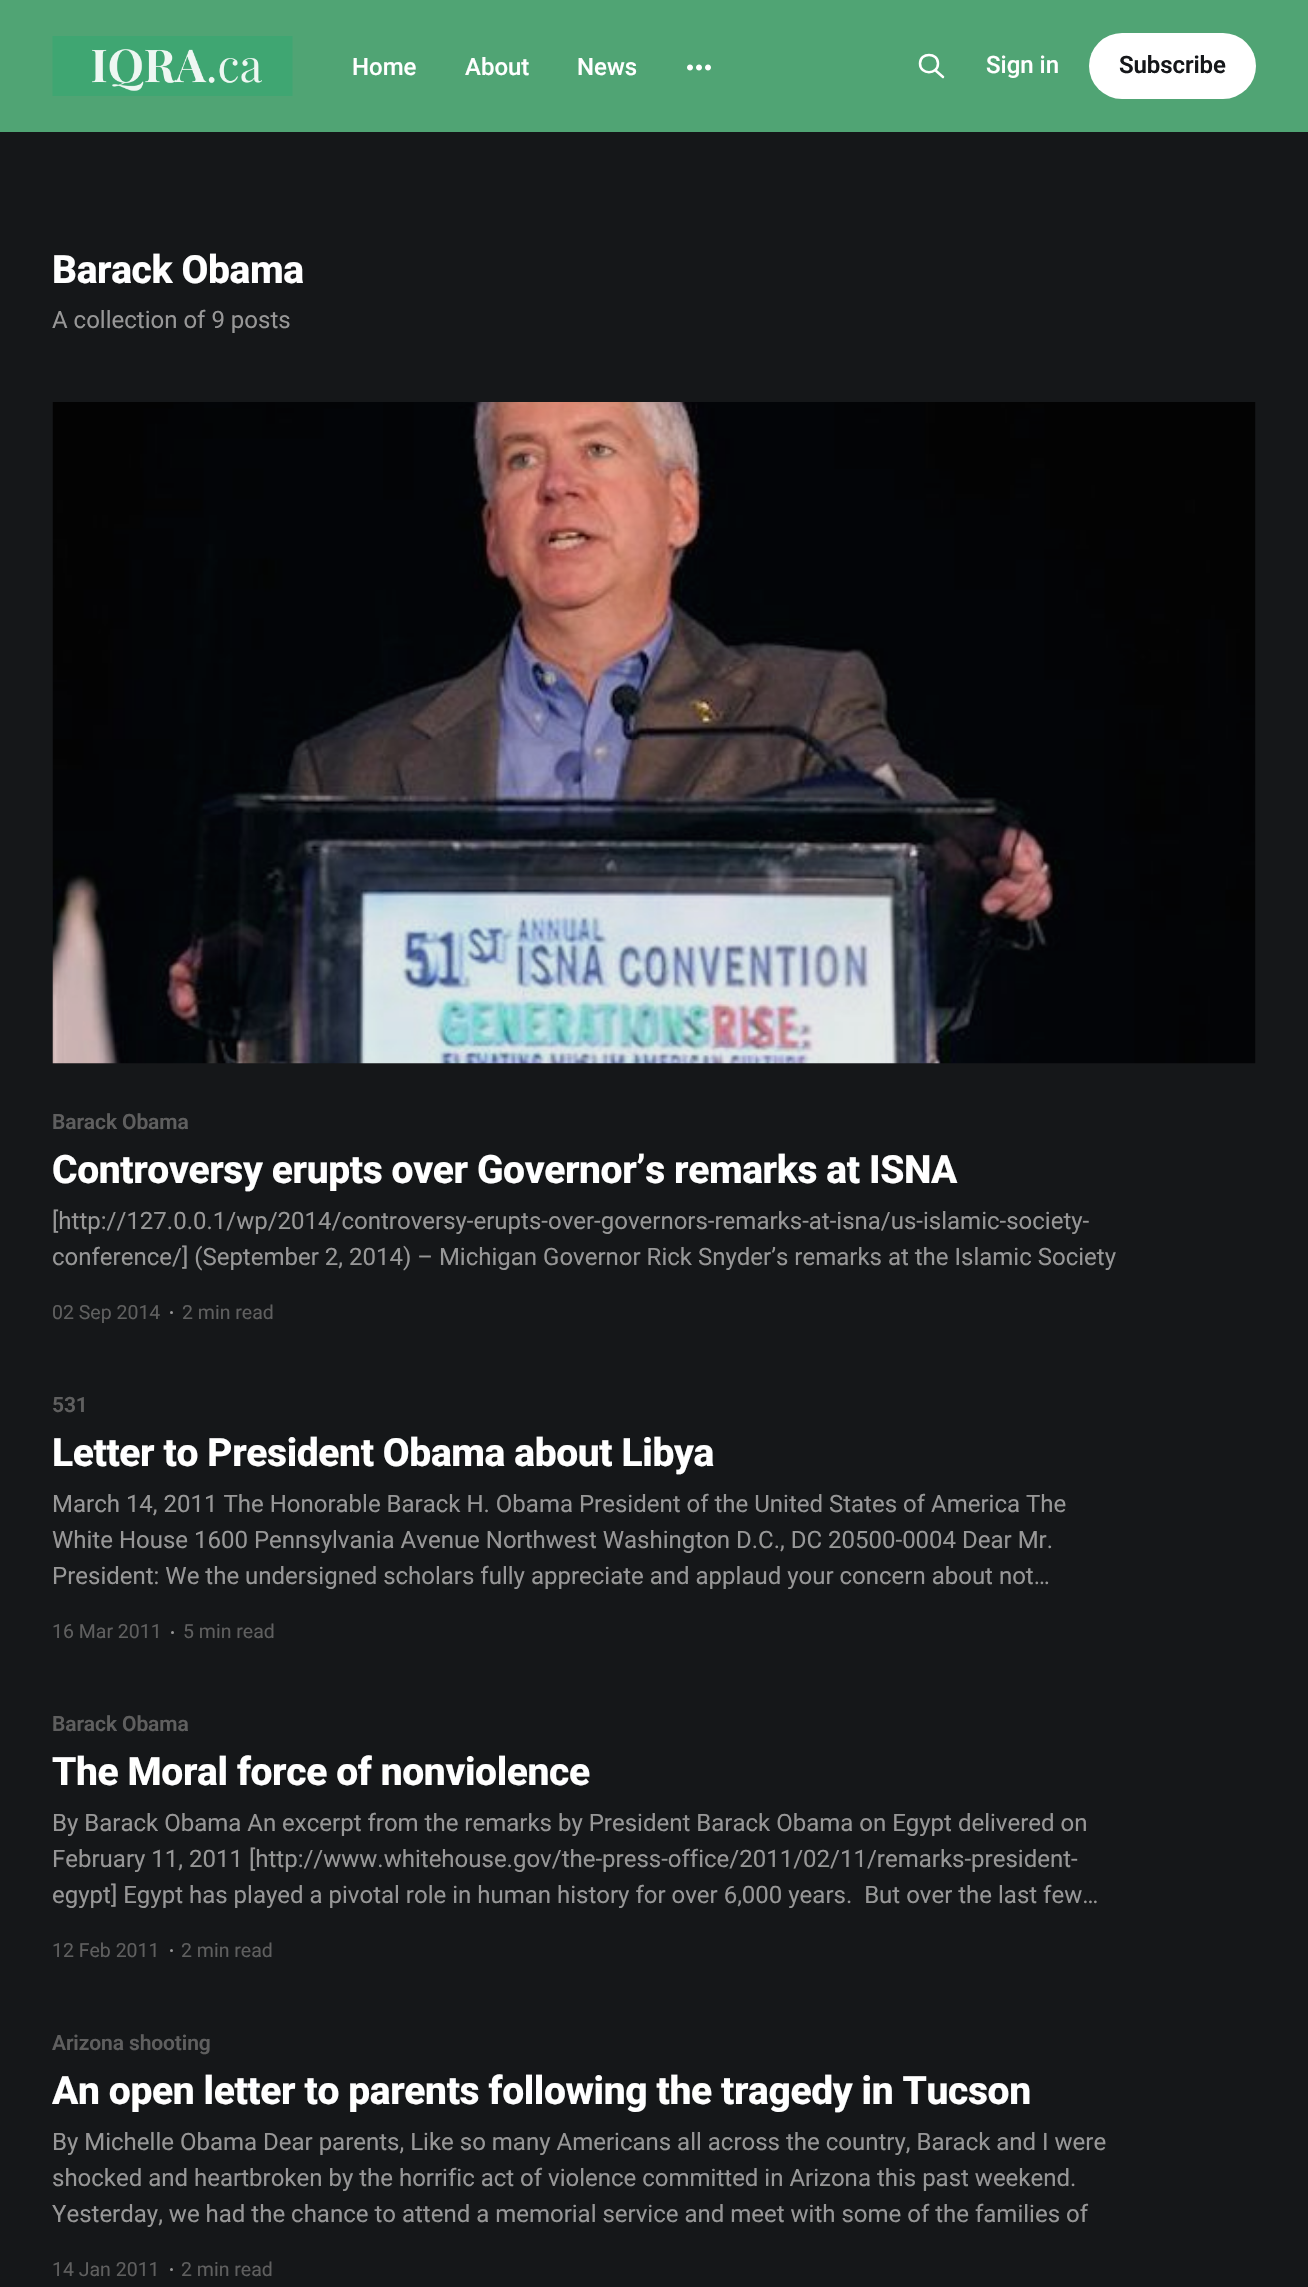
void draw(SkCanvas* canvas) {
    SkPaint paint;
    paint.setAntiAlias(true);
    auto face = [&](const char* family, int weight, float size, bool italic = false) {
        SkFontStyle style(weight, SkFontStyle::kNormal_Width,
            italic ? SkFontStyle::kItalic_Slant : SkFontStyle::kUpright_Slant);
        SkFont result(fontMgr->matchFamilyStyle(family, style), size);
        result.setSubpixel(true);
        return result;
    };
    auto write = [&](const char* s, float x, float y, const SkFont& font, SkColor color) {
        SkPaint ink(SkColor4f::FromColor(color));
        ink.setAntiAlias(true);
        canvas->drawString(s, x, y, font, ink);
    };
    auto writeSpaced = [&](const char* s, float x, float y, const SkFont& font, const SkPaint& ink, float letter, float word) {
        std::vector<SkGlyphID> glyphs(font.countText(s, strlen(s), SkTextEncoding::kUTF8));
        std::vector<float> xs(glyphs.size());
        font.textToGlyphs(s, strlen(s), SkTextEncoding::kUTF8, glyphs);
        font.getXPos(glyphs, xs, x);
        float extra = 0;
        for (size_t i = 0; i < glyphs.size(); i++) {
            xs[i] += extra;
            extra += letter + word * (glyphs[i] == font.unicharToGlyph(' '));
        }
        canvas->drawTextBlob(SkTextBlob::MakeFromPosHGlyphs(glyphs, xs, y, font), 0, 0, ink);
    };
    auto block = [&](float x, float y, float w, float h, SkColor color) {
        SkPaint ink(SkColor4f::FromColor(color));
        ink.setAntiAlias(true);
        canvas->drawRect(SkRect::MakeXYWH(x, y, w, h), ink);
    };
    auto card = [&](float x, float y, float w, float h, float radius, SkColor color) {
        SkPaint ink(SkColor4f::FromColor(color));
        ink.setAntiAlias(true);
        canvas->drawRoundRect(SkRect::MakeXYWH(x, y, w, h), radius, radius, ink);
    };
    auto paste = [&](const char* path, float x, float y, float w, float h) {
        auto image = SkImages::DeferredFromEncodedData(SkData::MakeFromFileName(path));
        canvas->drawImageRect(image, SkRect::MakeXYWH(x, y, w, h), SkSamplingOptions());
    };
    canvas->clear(SkColorSetRGB(21, 23, 25));
    block(0, 0, 1308, 132, SkColorSetRGB(80, 164, 116));
    paste("pic1.png", 52, 36, 241, 60);
    auto kFont1 = face("Roboto", 500, 24);
    write("Home", 352, 75, kFont1, SK_ColorWHITE);
    write("About", 465, 75, kFont1, SK_ColorWHITE);
    write("News", 577, 75, kFont1, SK_ColorWHITE);
    paste("pic2.png", 687, 64, 24, 7);
    paint.setStyle(SkPaint::kStroke_Style);
    paint.setStrokeWidth(2.5f);
    paint.setStrokeCap(SkPaint::kRound_Cap);
    paint.setStrokeJoin(SkPaint::kRound_Join);
    paint.setColor(SK_ColorWHITE);
    canvas->drawPath(SkPathBuilder().moveTo(943, 77).lineTo(935, 70).moveTo(938, 63.5f).cubicTo(938, 75, 920, 75, 920, 63.5f).cubicTo(920, 52, 938, 52, 938, 63.5f).close().detach(), paint);
    write("Sign in", 986, 73, kFont1, SK_ColorWHITE);
    card(1089, 33, 167, 66, 33, SK_ColorWHITE);
    auto kFont2 = face("Roboto", 600, 24);
    paint.setStyle(SkPaint::kFill_Style);
    paint.setColor(SkColorSetRGB(21, 23, 26));
    writeSpaced("Subscribe", 1119, 73, kFont2, paint, -0.1f, 0);
    auto kFont3 = face("Roboto", 800, 39);
    paint.setColor(SK_ColorWHITE);
    writeSpaced("Barack Obama", 52, 283, kFont3, paint, -0.4f, 0);
    auto kFont4 = face("Roboto", 400, 24);
    write("A collection of 9 posts", 52, 328, kFont4, SkColorSetRGB(151, 151, 151));
    paste("pic3.png", 52, 402, 1204, 662);
    auto kFont5 = face("Roboto", 600, 21);
    paint.setColor(SkColorSetRGB(95, 95, 95));
    writeSpaced("Barack Obama", 52, 1129, kFont5, paint, -0.1f, 0);
    paint.setColor(SK_ColorWHITE);
    writeSpaced("Controversy erupts over Governor’s remarks at ISNA", 52, 1183, kFont3, paint, -0.4f, 0);
    write("[http://127.0.0.1/wp/2014/controversy-erupts-over-governors-remarks-at-isna/us-islamic-society-", 52, 1229, kFont4, SkColorSetRGB(151, 151, 151));
    write("conference/] (September 2, 2014) – Michigan Governor Rick Snyder’s remarks at the Islamic Society", 52, 1265, kFont4, SkColorSetRGB(151, 151, 151));
    auto kFont6 = face("Roboto", 400, 19.5f);
    write("02 Sep 2014", 52, 1319, kFont6, SkColorSetRGB(95, 95, 95));
    paint.setColor(SkColorSetRGB(151, 151, 151));
    canvas->drawCircle(171.5f, 1312.5f, 1.5f, paint);
    write("2 min read", 182, 1319, kFont6, SkColorSetRGB(95, 95, 95));
    paint.setColor(SkColorSetRGB(95, 95, 95));
    writeSpaced("531", 52, 1412, kFont5, paint, -0.1f, 0);
    paint.setColor(SK_ColorWHITE);
    writeSpaced("Letter to President Obama about Libya", 52, 1466, kFont3, paint, -0.4f, 0);
    write("March 14, 2011 The Honorable Barack H. Obama President of the United States of America The", 52, 1512, kFont4, SkColorSetRGB(151, 151, 151));
    write("White House 1600 Pennsylvania Avenue Northwest Washington D.C., DC 20500-0004 Dear Mr.", 52, 1548, kFont4, SkColorSetRGB(151, 151, 151));
    write("President: We the undersigned scholars fully appreciate and applaud your concern about not…", 52, 1584, kFont4, SkColorSetRGB(151, 151, 151));
    write("16 Mar 2011", 52, 1638, kFont6, SkColorSetRGB(95, 95, 95));
    paint.setColor(SkColorSetRGB(151, 151, 151));
    canvas->drawCircle(172.5f, 1632.5f, 1.5f, paint);
    write("5 min read", 183, 1638, kFont6, SkColorSetRGB(95, 95, 95));
    paint.setColor(SkColorSetRGB(95, 95, 95));
    writeSpaced("Barack Obama", 52, 1731, kFont5, paint, -0.1f, 0);
    paint.setColor(SK_ColorWHITE);
    writeSpaced("The Moral force of nonviolence", 52, 1785, kFont3, paint, -0.4f, 0);
    write("By Barack Obama An excerpt from the remarks by President Barack Obama on Egypt delivered on", 52, 1831, kFont4, SkColorSetRGB(151, 151, 151));
    write("February 11, 2011 [http://www.whitehouse.gov/the-press-office/2011/02/11/remarks-president-", 52, 1867, kFont4, SkColorSetRGB(151, 151, 151));
    write("egypt] Egypt has played a pivotal role in human history for over 6,000 years.  But over the last few…", 52, 1903, kFont4, SkColorSetRGB(151, 151, 151));
    write("12 Feb 2011", 52, 1957, kFont6, SkColorSetRGB(95, 95, 95));
    paint.setColor(SkColorSetRGB(151, 151, 151));
    canvas->drawCircle(171.5f, 1950.5f, 1.5f, paint);
    write("2 min read", 181, 1957, kFont6, SkColorSetRGB(95, 95, 95));
    paint.setColor(SkColorSetRGB(95, 95, 95));
    writeSpaced("Arizona shooting", 52, 2050, kFont5, paint, -0.1f, 0);
    paint.setColor(SK_ColorWHITE);
    writeSpaced("An open letter to parents following the tragedy in Tucson", 52, 2104, kFont3, paint, -0.4f, 0);
    write("By Michelle Obama Dear parents, Like so many Americans all across the country, Barack and I were", 52, 2150, kFont4, SkColorSetRGB(151, 151, 151));
    write("shocked and heartbroken by the horrific act of violence committed in Arizona this past weekend.", 52, 2186, kFont4, SkColorSetRGB(151, 151, 151));
    write("Yesterday, we had the chance to attend a memorial service and meet with some of the families of", 52, 2222, kFont4, SkColorSetRGB(151, 151, 151));
    write("14 Jan 2011", 52, 2276, kFont6, SkColorSetRGB(95, 95, 95));
    paint.setColor(SkColorSetRGB(151, 151, 151));
    canvas->drawCircle(171.5f, 2269.5f, 1.5f, paint);
    write("2 min read", 181, 2276, kFont6, SkColorSetRGB(95, 95, 95));
}
